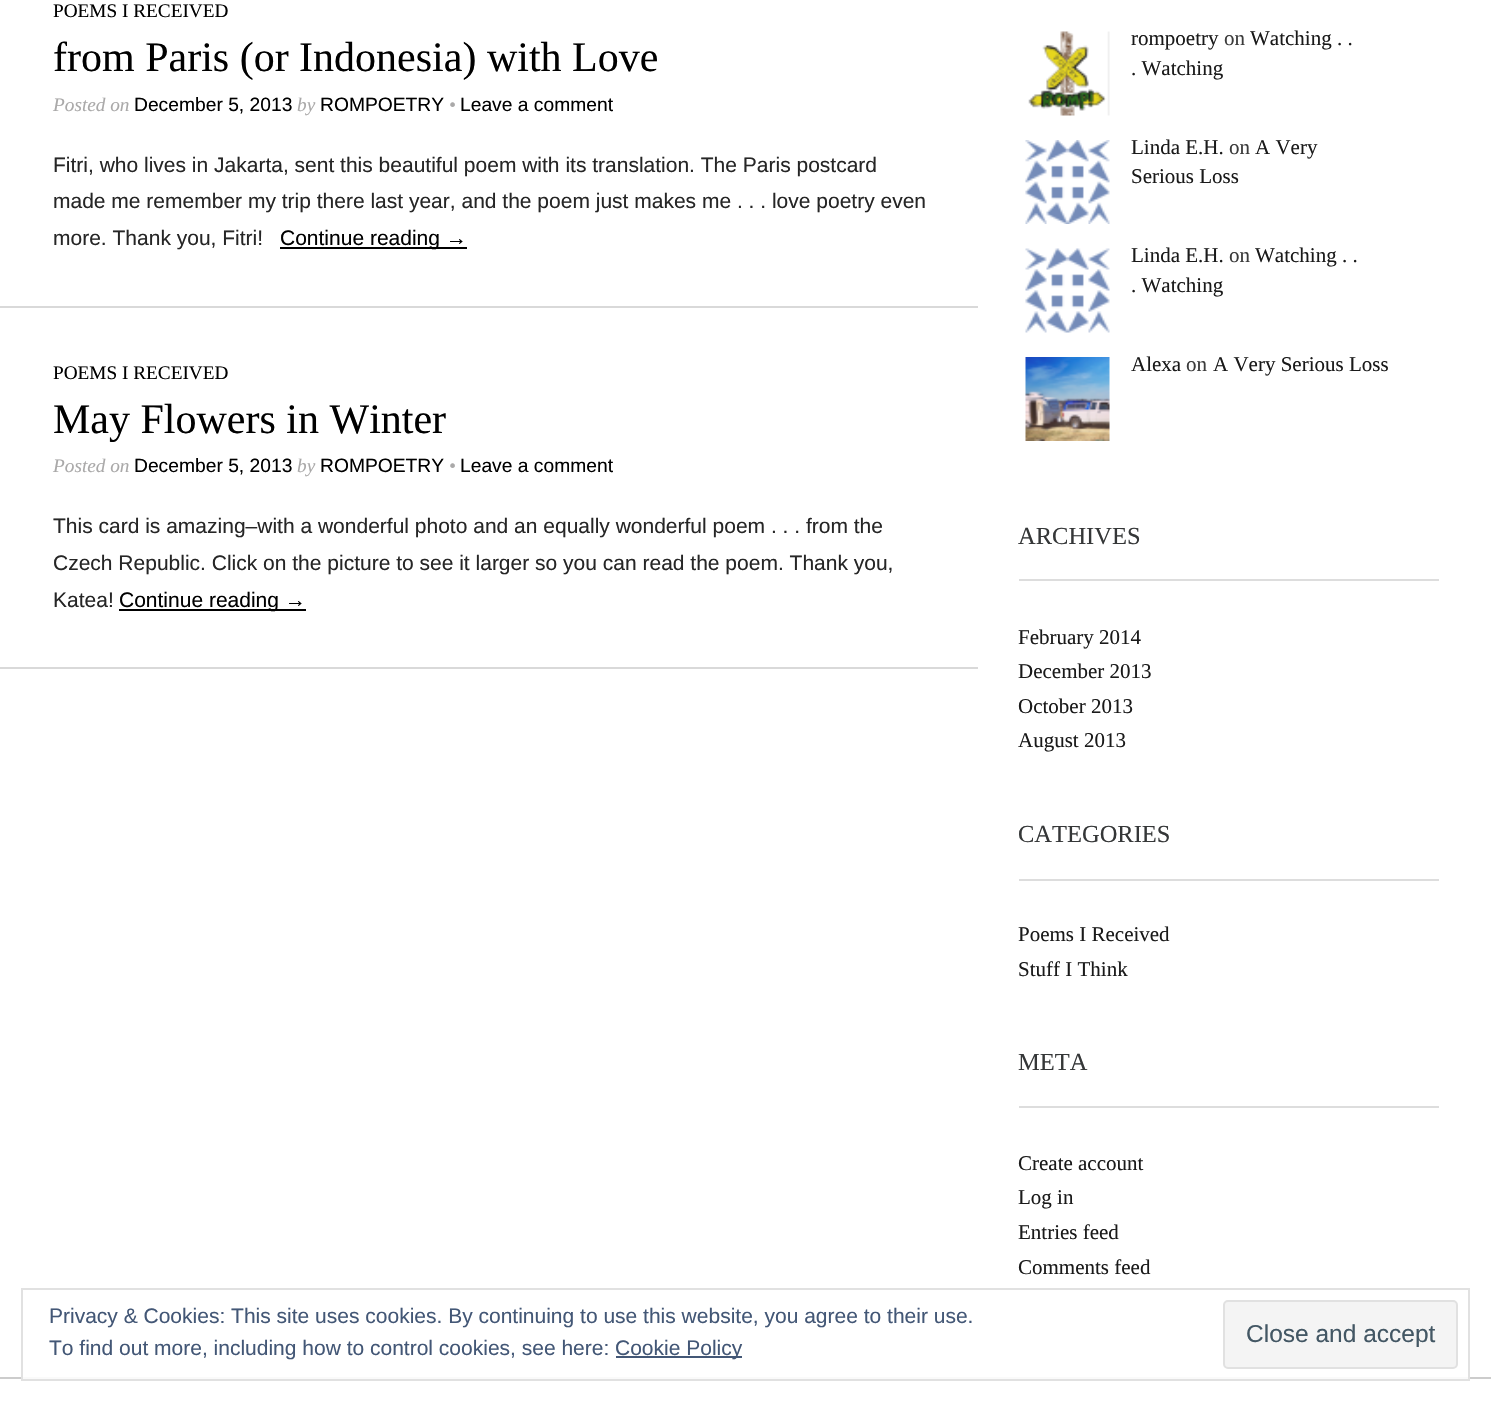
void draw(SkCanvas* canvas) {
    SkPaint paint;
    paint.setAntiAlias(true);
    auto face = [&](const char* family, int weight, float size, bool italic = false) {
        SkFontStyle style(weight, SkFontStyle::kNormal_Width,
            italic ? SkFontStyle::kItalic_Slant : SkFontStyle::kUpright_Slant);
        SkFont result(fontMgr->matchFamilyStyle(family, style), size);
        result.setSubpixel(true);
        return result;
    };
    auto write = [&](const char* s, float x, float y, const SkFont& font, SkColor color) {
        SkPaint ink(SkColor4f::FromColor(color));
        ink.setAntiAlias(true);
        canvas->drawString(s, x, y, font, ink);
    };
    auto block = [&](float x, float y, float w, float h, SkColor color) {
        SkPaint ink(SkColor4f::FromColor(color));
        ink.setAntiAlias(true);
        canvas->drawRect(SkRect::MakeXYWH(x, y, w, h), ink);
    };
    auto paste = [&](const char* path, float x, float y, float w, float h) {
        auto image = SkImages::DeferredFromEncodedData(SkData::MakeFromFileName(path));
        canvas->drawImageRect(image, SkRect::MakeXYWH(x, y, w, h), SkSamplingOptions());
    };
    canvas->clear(SK_ColorWHITE);
    block(0, 306, 978, 2, SkColorSetRGB(217, 217, 217));
    auto kFont1 = face("Liberation Serif", 400, 19.25f);
    write("POEMS I RECEIVED", 53, 17, kFont1, SK_ColorBLACK);
    auto kFont2 = face("Liberation Serif", 400, 42);
    write("from Paris (or Indonesia) with Love", 53, 71, kFont2, SK_ColorBLACK);
    auto kFont3 = face("Liberation Serif", 400, 19.25f, true);
    write("Posted on", 53, 111, kFont3, SkColorSetRGB(170, 169, 169));
    auto kFont4 = face("Liberation Sans", 400, 19.25f);
    write("December 5, 2013", 134, 111, kFont4, SK_ColorBLACK);
    write("by", 297, 111, kFont3, SkColorSetRGB(170, 169, 169));
    write("ROMPOETRY", 320, 111, kFont4, SK_ColorBLACK);
    write("•", 449, 111, kFont3, SkColorSetRGB(170, 169, 169));
    write("Leave a comment", 460, 111, kFont4, SK_ColorBLACK);
    auto kFont5 = face("Liberation Sans", 400, 21);
    write("Fitri, who lives in Jakarta, sent this beautiful poem with its translation. The Paris postcard", 53, 172, kFont5, SkColorSetRGB(38, 38, 38));
    write("made me remember my trip there last year, and the poem just makes me . . . love poetry even", 53, 208, kFont5, SkColorSetRGB(38, 38, 38));
    write("more. Thank you, Fitri!", 53, 245, kFont5, SkColorSetRGB(38, 38, 38));
    block(280, 247, 187, 2, SK_ColorBLACK);
    write("Continue reading →", 280, 245, kFont5, SK_ColorBLACK);
    block(0, 667, 978, 2, SkColorSetRGB(217, 217, 217));
    write("POEMS I RECEIVED", 53, 379, kFont1, SK_ColorBLACK);
    write("May Flowers in Winter", 53, 433, kFont2, SK_ColorBLACK);
    write("Posted on", 53, 472, kFont3, SkColorSetRGB(170, 169, 169));
    write("December 5, 2013", 134, 472, kFont4, SK_ColorBLACK);
    write("by", 297, 472, kFont3, SkColorSetRGB(170, 169, 169));
    write("ROMPOETRY", 320, 472, kFont4, SK_ColorBLACK);
    write("•", 449, 472, kFont3, SkColorSetRGB(170, 169, 169));
    write("Leave a comment", 460, 472, kFont4, SK_ColorBLACK);
    write("This card is amazing–with a wonderful photo and an equally wonderful poem . . . from the", 53, 533, kFont5, SkColorSetRGB(38, 38, 38));
    write("Czech Republic. Click on the picture to see it larger so you can read the poem. Thank you,", 53, 570, kFont5, SkColorSetRGB(38, 38, 38));
    write("Katea!", 53, 607, kFont5, SkColorSetRGB(38, 38, 38));
    block(119, 609, 187, 2, SK_ColorBLACK);
    write("Continue reading →", 119, 607, kFont5, SK_ColorBLACK);
    paste("pic1.png", 1028, 31, 82, 85);
    auto kFont6 = face("Liberation Serif", 400, 21);
    write("rompoetry", 1131, 45, kFont6, SkColorSetRGB(26, 26, 26));
    write("on", 1224, 45, kFont6, SkColorSetRGB(60, 60, 60));
    write("Watching . .", 1250, 45, kFont6, SkColorSetRGB(26, 26, 26));
    write(". Watching", 1131, 75, kFont6, SkColorSetRGB(26, 26, 26));
    paste("pic2.png", 1025, 140, 85, 84);
    write("Linda E.H.", 1131, 154, kFont6, SkColorSetRGB(26, 26, 26));
    write("on", 1229, 154, kFont6, SkColorSetRGB(60, 60, 60));
    write("A Very", 1255, 154, kFont6, SkColorSetRGB(26, 26, 26));
    write("Serious Loss", 1131, 183, kFont6, SkColorSetRGB(26, 26, 26));
    paste("pic3.png", 1025, 248, 85, 85);
    write("Linda E.H.", 1131, 262, kFont6, SkColorSetRGB(26, 26, 26));
    write("on", 1229, 262, kFont6, SkColorSetRGB(60, 60, 60));
    write("Watching . .", 1255, 262, kFont6, SkColorSetRGB(26, 26, 26));
    write(". Watching", 1131, 292, kFont6, SkColorSetRGB(26, 26, 26));
    paste("pic4.png", 1025, 357, 85, 84);
    write("Alexa", 1131, 371, kFont6, SkColorSetRGB(26, 26, 26));
    write("on", 1186, 371, kFont6, SkColorSetRGB(60, 60, 60));
    write("A Very Serious Loss", 1213, 371, kFont6, SkColorSetRGB(26, 26, 26));
    block(1019, 579, 420, 2, SkColorSetRGB(221, 221, 221));
    auto kFont7 = face("Liberation Serif", 400, 24.5f);
    write("ARCHIVES", 1018, 544, kFont7, SkColorSetRGB(53, 55, 56));
    write("February 2014", 1018, 644, kFont6, SkColorSetRGB(26, 26, 26));
    write("December 2013", 1018, 678, kFont6, SkColorSetRGB(26, 26, 26));
    write("October 2013", 1018, 713, kFont6, SkColorSetRGB(26, 26, 26));
    write("August 2013", 1018, 747, kFont6, SkColorSetRGB(26, 26, 26));
    block(1019, 879, 420, 2, SkColorSetRGB(221, 221, 221));
    write("CATEGORIES", 1018, 842, kFont7, SkColorSetRGB(53, 55, 56));
    write("Poems I Received", 1018, 941, kFont6, SkColorSetRGB(26, 26, 26));
    write("Stuff I Think", 1018, 976, kFont6, SkColorSetRGB(26, 26, 26));
    block(1019, 1106, 420, 2, SkColorSetRGB(221, 221, 221));
    write("META", 1018, 1070, kFont7, SkColorSetRGB(53, 55, 56));
    write("Create account", 1018, 1170, kFont6, SkColorSetRGB(26, 26, 26));
    write("Log in", 1018, 1204, kFont6, SkColorSetRGB(26, 26, 26));
    write("Entries feed", 1018, 1239, kFont6, SkColorSetRGB(26, 26, 26));
    write("Comments feed", 1018, 1274, kFont6, SkColorSetRGB(26, 26, 26));
    block(0, 1377, 1491, 2, SkColorSetRGB(204, 204, 204));
    block(21, 1377, 1449, 2, SkColorSetARGB(230, 255, 255, 255));
    paint.setStyle(SkPaint::kStroke_Style);
    paint.setStrokeWidth(2);
    paint.setColor(SkColorSetARGB(230, 222, 222, 222));
    canvas->drawRect(SkRect::MakeXYWH(22, 1289, 1447, 91), paint);
    write("Privacy & Cookies: This site uses cookies. By continuing to use this website, you agree to their use.", 49, 1323, kFont5, SkColorSetRGB(67, 87, 118));
    write("To find out more, including how to control cookies, see here:", 49, 1355, kFont5, SkColorSetRGB(67, 87, 118));
    block(616, 1356, 126, 2, SkColorSetRGB(67, 87, 118));
    write("Cookie Policy", 615, 1355, kFont5, SkColorSetRGB(67, 87, 118));
    paint.setStyle(SkPaint::kFill_Style);
    paint.setColor(SkColorSetRGB(244, 244, 244));
    canvas->drawRoundRect(SkRect::MakeXYWH(1224, 1301, 233, 67), 4, 4, paint);
    paint.setStyle(SkPaint::kStroke_Style);
    paint.setColor(SkColorSetRGB(225, 225, 225));
    canvas->drawRoundRect(SkRect::MakeXYWH(1224, 1301, 233, 67), 4, 4, paint);
    auto kFont8 = face("Liberation Sans", 400, 24.5f);
    write("Close and accept", 1246, 1342, kFont8, SkColorSetRGB(67, 87, 100));
}
